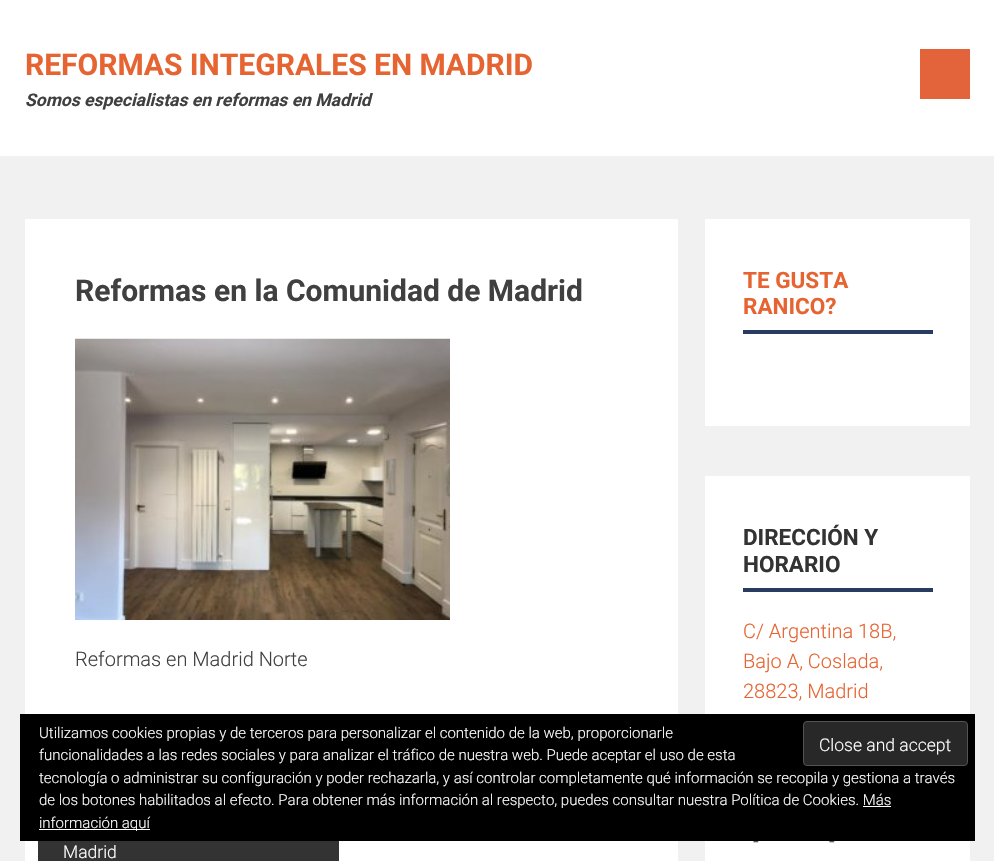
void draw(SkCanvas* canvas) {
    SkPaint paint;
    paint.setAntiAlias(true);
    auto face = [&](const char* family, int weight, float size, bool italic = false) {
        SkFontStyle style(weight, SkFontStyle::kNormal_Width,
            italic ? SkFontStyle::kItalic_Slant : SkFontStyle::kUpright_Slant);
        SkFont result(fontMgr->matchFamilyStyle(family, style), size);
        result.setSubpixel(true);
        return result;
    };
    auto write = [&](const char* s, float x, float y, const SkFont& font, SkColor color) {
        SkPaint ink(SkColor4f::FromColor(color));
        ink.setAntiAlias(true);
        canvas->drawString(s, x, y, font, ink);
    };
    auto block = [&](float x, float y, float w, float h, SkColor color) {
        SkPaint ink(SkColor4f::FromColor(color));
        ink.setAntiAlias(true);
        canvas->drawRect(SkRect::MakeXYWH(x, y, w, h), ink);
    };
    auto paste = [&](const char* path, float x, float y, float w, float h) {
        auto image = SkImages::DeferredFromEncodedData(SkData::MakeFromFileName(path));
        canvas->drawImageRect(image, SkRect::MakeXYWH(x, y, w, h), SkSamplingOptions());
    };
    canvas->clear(SkColorSetRGB(241, 241, 241));
    block(0, 0, 994, 156, SK_ColorWHITE);
    auto kFont1 = face("Roboto", 700, 30);
    write("REFORMAS INTEGRALES EN MADRID", 25, 75, kFont1, SkColorSetRGB(230, 100, 50));
    auto kFont2 = face("Roboto", 700, 17.5f, true);
    write("Somos especialistas en reformas en Madrid", 25, 106, kFont2, SkColorSetRGB(64, 64, 64));
    block(920, 49, 50, 50, SkColorSetRGB(227, 99, 59));
    block(25, 219, 653, 495, SK_ColorWHITE);
    write("Reformas en la Comunidad de Madrid", 75, 301, kFont1, SkColorSetRGB(64, 64, 64));
    paste("pic1.png", 75, 338, 375, 282);
    auto kFont3 = face("Roboto", 300, 20);
    write("Reformas en Madrid Norte", 75, 666, kFont3, SkColorSetRGB(64, 64, 64));
    block(25, 841, 653, 20, SK_ColorWHITE);
    block(38, 841, 301, 20, SkColorSetRGB(51, 51, 51));
    auto kFont4 = face("Roboto", 300, 17.5f);
    write("Madrid", 63, 858, kFont4, SK_ColorWHITE);
    block(705, 219, 265, 207, SK_ColorWHITE);
    block(743, 330, 190, 4, SkColorSetRGB(39, 60, 96));
    auto kFont5 = face("Roboto", 700, 22.5f);
    write("TE GUSTA", 743, 288, kFont5, SkColorSetRGB(230, 100, 50));
    write("RANICO?", 743, 314, kFont5, SkColorSetRGB(230, 100, 50));
    block(705, 476, 265, 385, SK_ColorWHITE);
    block(743, 588, 190, 4, SkColorSetRGB(39, 60, 96));
    write("DIRECCIÓN Y", 743, 545, kFont5, SkColorSetRGB(51, 51, 51));
    write("HORARIO", 743, 572, kFont5, SkColorSetRGB(51, 51, 51));
    write("C/ Argentina 18B,", 743, 638, kFont3, SkColorSetRGB(230, 100, 50));
    write("Bajo A, Coslada,", 743, 668, kFont3, SkColorSetRGB(230, 100, 50));
    write("28823, Madrid", 743, 698, kFont3, SkColorSetRGB(230, 100, 50));
    write("-", 753, 848, kFont3, SkColorSetRGB(64, 64, 64));
    write("-", 829, 848, kFont3, SkColorSetRGB(64, 64, 64));
    block(20, 714, 955, 127, SK_ColorBLACK);
    auto kFont6 = face("Roboto", 300, 15);
    write("Utilizamos cookies propias y de terceros para personalizar el contenido de la web, proporcionarle", 39, 738, kFont6, SK_ColorWHITE);
    write("funcionalidades a las redes sociales y para analizar el tráfico de nuestra web. Puede aceptar el uso de esta", 39, 760, kFont6, SK_ColorWHITE);
    paint.setColor(SkColorSetRGB(40, 40, 40));
    canvas->drawRoundRect(SkRect::MakeXYWH(803.5f, 721.5f, 164, 44), 3.5f, 3.5f, paint);
    paint.setStyle(SkPaint::kStroke_Style);
    paint.setStrokeWidth(1);
    paint.setColor(SkColorSetRGB(83, 83, 83));
    canvas->drawRoundRect(SkRect::MakeXYWH(803.5f, 721.5f, 164, 44), 3.5f, 3.5f, paint);
    write("Close and accept", 819, 751, kFont4, SK_ColorWHITE);
    write("tecnología o administrar su configuración y poder rechazarla, y así controlar completamente qué información se recopila y gestiona a través", 39, 783, kFont6, SK_ColorWHITE);
    write("de los botones habilitados al efecto. Para obtener más información al respecto, puedes consultar nuestra Política de Cookies. Más", 39, 805, kFont6, SK_ColorWHITE);
    block(39, 829, 111, 1, SK_ColorWHITE);
    write("información aquí", 39, 828, kFont6, SK_ColorWHITE);
    block(863, 806, 28, 1, SK_ColorWHITE);
}
